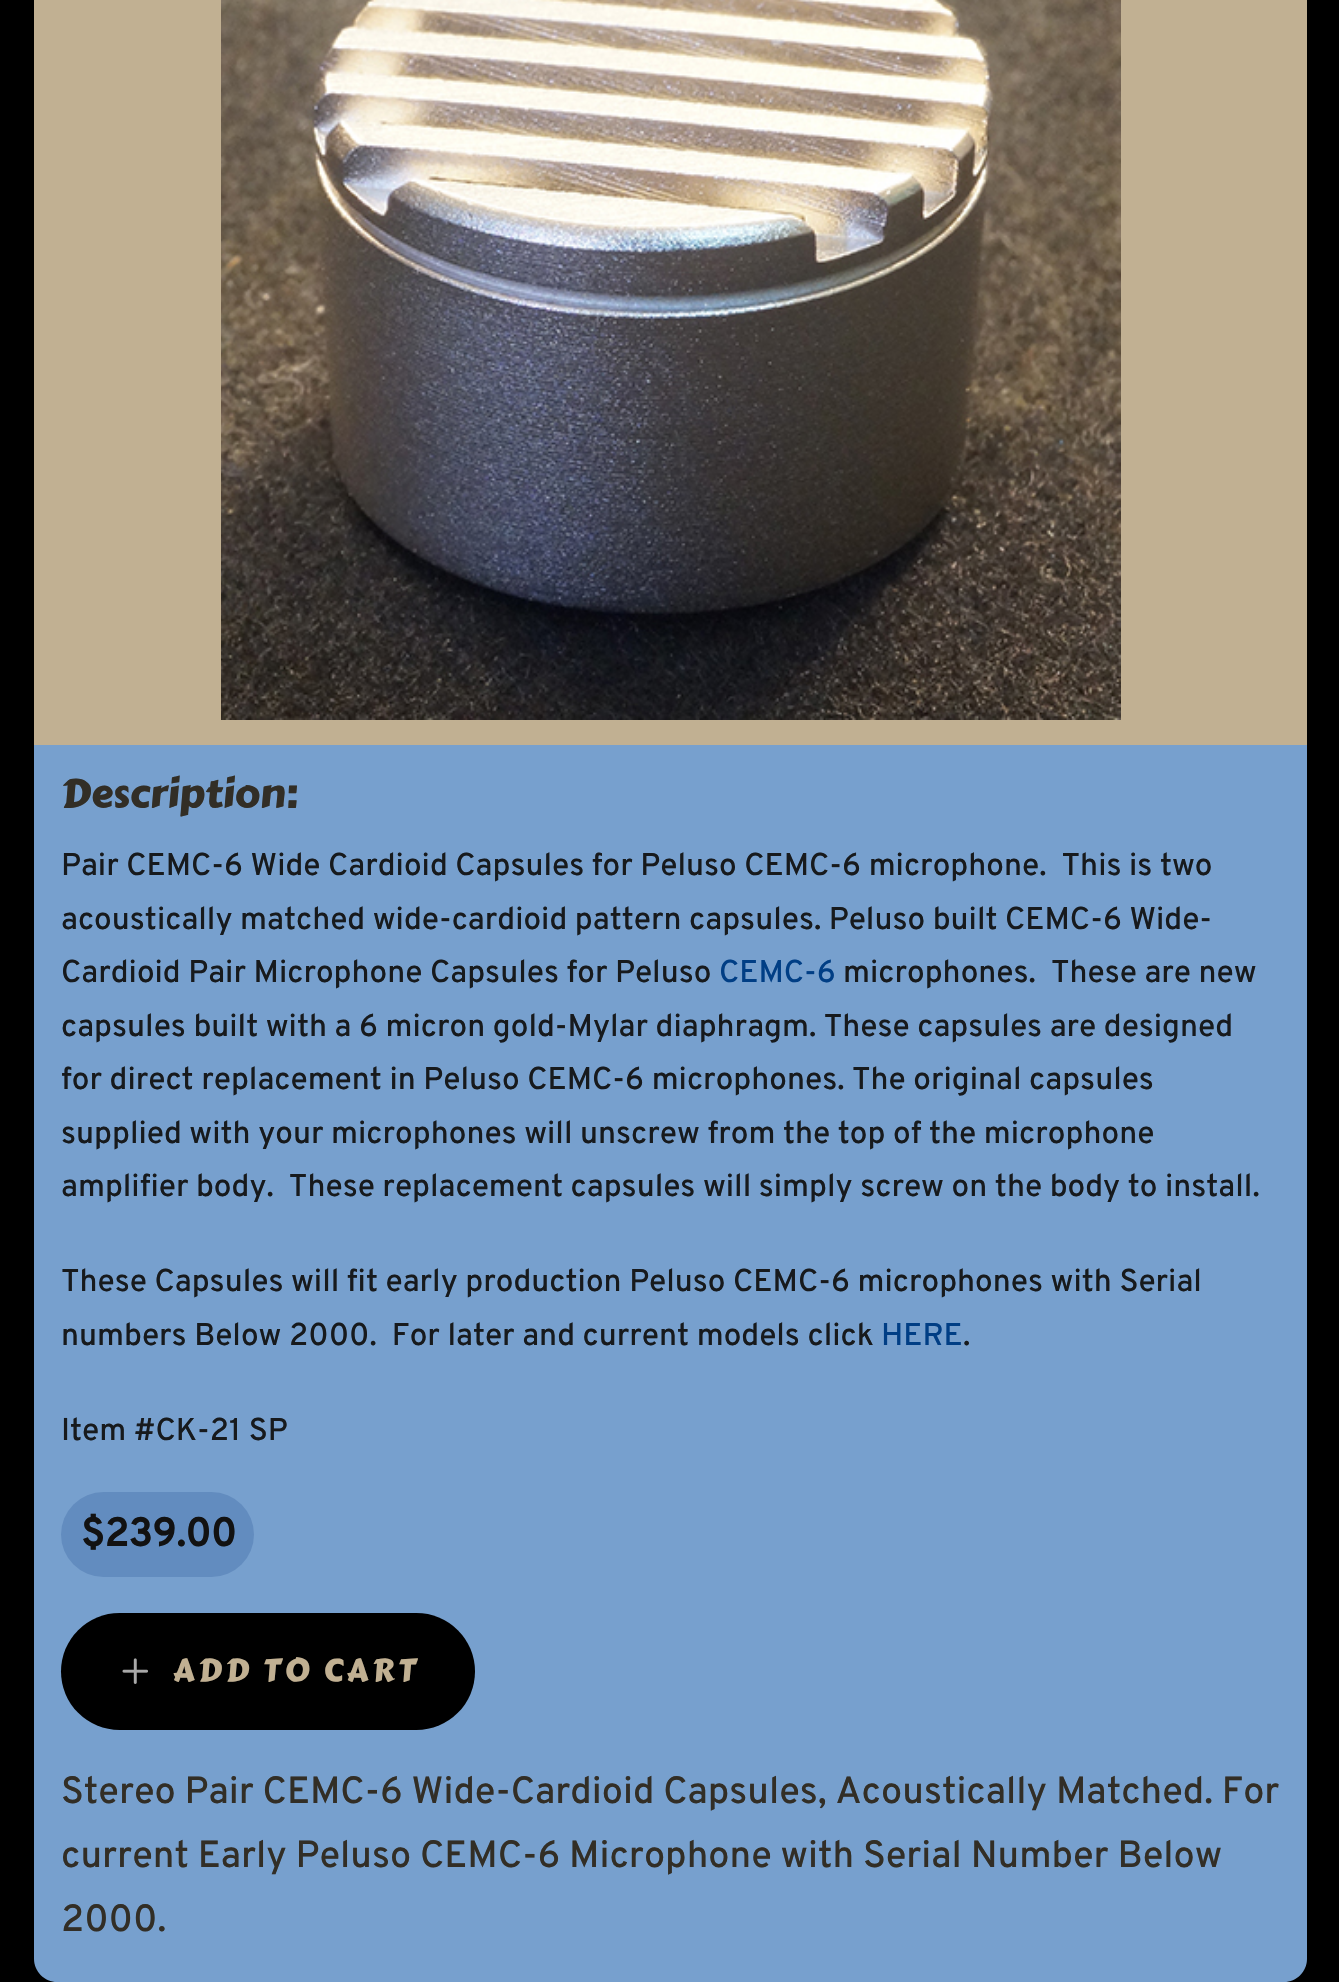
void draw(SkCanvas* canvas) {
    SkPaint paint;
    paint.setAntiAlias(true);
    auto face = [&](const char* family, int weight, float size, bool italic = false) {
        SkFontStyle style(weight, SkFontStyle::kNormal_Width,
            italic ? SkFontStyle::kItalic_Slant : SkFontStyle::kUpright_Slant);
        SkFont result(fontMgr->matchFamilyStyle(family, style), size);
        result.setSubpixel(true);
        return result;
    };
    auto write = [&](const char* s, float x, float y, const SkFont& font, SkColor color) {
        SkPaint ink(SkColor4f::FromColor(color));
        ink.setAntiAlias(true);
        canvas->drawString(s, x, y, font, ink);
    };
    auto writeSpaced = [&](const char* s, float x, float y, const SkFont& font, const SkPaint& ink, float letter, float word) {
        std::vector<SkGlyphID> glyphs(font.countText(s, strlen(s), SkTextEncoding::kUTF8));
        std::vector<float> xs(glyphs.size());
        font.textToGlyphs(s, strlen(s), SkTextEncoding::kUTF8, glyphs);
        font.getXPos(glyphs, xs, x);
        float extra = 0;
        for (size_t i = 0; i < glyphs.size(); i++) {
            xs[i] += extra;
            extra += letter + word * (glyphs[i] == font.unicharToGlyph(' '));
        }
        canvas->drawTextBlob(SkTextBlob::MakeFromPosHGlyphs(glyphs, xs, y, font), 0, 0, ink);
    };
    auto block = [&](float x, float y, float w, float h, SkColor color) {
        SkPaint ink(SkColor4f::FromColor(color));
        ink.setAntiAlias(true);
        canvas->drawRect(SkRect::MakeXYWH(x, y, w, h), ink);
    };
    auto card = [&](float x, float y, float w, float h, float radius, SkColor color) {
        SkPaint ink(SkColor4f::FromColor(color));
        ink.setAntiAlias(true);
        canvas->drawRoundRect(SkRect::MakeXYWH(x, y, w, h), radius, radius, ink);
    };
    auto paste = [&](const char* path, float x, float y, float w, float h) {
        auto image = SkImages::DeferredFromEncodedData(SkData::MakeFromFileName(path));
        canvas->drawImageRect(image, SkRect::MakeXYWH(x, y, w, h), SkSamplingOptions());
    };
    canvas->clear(SK_ColorBLACK);
    block(34, 0, 1273, 745, SkColorSetRGB(193, 176, 146));
    paste("pic1.png", 221, 0, 900, 720);
    paint.setColor(SkColorSetRGB(119, 160, 206));
    canvas->drawPath(SkPathBuilder().moveTo(34, 745).lineTo(1307, 745).lineTo(1307, 1959).cubicTo(1307, 1971.5f, 1296.5f, 1982, 1284, 1982).lineTo(57, 1982).cubicTo(44.5f, 1982, 34, 1971.5f, 34, 1959).close().detach(), paint);
    auto kFont1 = face("Carter One", 400, 39.5f);
    write("Description:", 61, 807, kFont1, SkColorSetRGB(50, 46, 38));
    auto kFont2 = face("Overpass", 500, 31.5f);
    write("Pair CEMC-6 Wide Cardioid Capsules for Peluso CEMC-6 microphone.  This is two", 61, 875, kFont2, SkColorSetRGB(23, 26, 29));
    write("acoustically matched wide-cardioid pattern capsules. Peluso built CEMC-6 Wide-", 61, 929, kFont2, SkColorSetRGB(23, 26, 29));
    write("Cardioid Pair Microphone Capsules for Peluso", 61, 982, kFont2, SkColorSetRGB(23, 26, 29));
    write("CEMC-6", 719, 982, kFont2, SkColorSetRGB(0, 62, 133));
    write("microphones.  These are new", 843, 982, kFont2, SkColorSetRGB(23, 26, 29));
    write("capsules built with a 6 micron gold-Mylar diaphragm. These capsules are designed", 61, 1036, kFont2, SkColorSetRGB(23, 26, 29));
    write("for direct replacement in Peluso CEMC-6 microphones. The original capsules", 61, 1089, kFont2, SkColorSetRGB(23, 26, 29));
    write("supplied with your microphones will unscrew from the top of the microphone", 61, 1143, kFont2, SkColorSetRGB(23, 26, 29));
    write("amplifier body.  These replacement capsules will simply screw on the body to install.", 61, 1196, kFont2, SkColorSetRGB(23, 26, 29));
    write("These Capsules will fit early production Peluso CEMC-6 microphones with Serial", 61, 1291, kFont2, SkColorSetRGB(23, 26, 29));
    write("numbers Below 2000.  For later and current models click", 61, 1345, kFont2, SkColorSetRGB(23, 26, 29));
    write("HERE", 881, 1345, kFont2, SkColorSetRGB(0, 62, 133));
    write(".", 963, 1345, kFont2, SkColorSetRGB(23, 26, 29));
    write("Item #CK-21 SP", 61, 1440, kFont2, SkColorSetRGB(23, 26, 29));
    card(61, 1492, 193, 85, 42.5f, SkColorSetRGB(98, 140, 191));
    auto kFont3 = face("Overpass", 700, 39.5f);
    write("$239.00", 81, 1546, kFont3, SkColorSetRGB(18, 18, 18));
    card(61, 1613, 414, 117, 58.5f, SK_ColorBLACK);
    paste("pic2.png", 122, 1658, 26, 26);
    auto kFont4 = face("Carter One", 400, 31.5f);
    paint.setColor(SkColorSetRGB(193, 176, 146));
    writeSpaced("ADD TO CART", 173, 1681, kFont4, paint, 3.6f, 0);
    auto kFont5 = face("Overpass", 500, 37.8f);
    paint.setColor(SkColorSetRGB(50, 46, 38));
    writeSpaced("Stereo Pair CEMC-6 Wide-Cardioid Capsules, Acoustically Matched. For", 61, 1803, kFont5, paint, 0, -0.25f);
    writeSpaced("current Early Peluso CEMC-6 Microphone with Serial Number Below", 61, 1867, kFont5, paint, 0, -0.25f);
    write("2000.", 61, 1931, kFont5, SkColorSetRGB(50, 46, 38));
}
